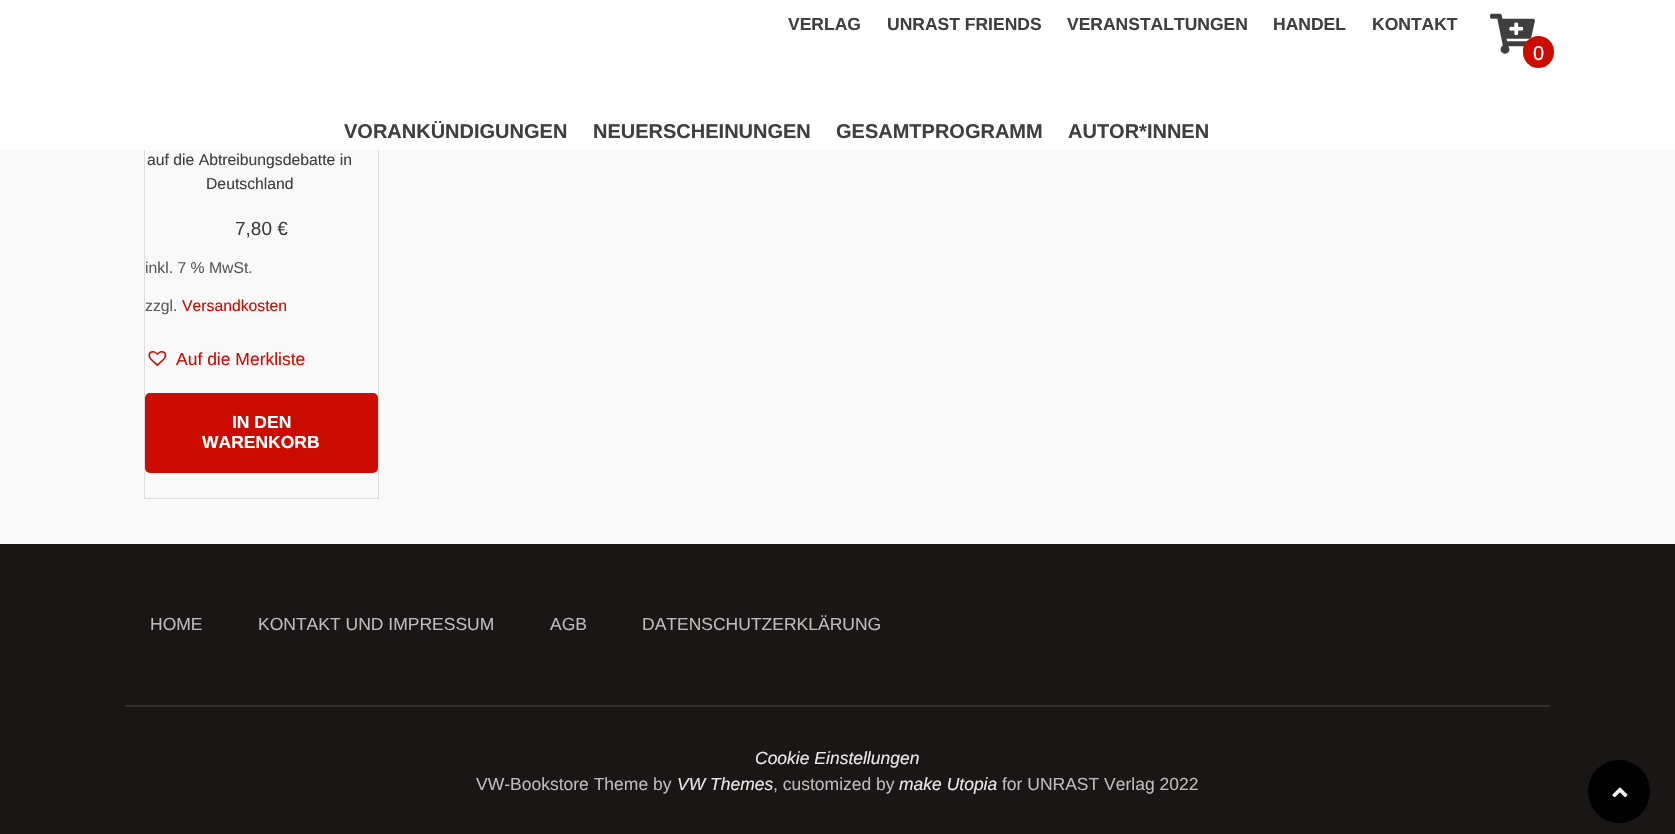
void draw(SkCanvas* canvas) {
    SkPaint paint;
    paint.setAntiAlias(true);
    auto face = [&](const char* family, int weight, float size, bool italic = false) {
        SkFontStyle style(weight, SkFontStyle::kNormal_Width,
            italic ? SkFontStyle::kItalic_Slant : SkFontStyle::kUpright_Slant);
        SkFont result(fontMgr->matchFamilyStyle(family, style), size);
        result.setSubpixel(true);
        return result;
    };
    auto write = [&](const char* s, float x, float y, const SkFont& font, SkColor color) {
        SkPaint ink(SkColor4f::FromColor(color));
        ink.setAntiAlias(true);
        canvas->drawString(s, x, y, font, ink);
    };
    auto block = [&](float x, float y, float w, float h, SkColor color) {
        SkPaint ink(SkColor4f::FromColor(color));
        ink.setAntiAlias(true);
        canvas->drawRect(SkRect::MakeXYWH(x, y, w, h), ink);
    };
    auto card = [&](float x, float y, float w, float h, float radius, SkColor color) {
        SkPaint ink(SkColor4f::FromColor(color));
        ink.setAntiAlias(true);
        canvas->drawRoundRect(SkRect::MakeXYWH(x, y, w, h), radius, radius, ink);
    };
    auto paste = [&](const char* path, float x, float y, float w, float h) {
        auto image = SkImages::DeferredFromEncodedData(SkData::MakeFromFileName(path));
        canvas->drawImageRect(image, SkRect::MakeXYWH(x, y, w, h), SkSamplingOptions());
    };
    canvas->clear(SkColorSetRGB(249, 249, 249));
    paint.setStyle(SkPaint::kStroke_Style);
    paint.setStrokeWidth(1);
    paint.setColor(SkColorSetRGB(221, 221, 221));
    canvas->drawRect(SkRect::MakeXYWH(144.5f, -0.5f, 234, 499), paint);
    block(0, 0, 1675, 150, SK_ColorWHITE);
    auto kFont1 = face("Liberation Sans", 700, 17.5f);
    write("VERLAG", 788, 30, kFont1, SkColorSetRGB(63, 63, 63));
    write("UNRAST FRIENDS", 887, 30, kFont1, SkColorSetRGB(63, 63, 63));
    write("VERANSTALTUNGEN", 1067, 30, kFont1, SkColorSetRGB(63, 63, 63));
    write("HANDEL", 1273, 30, kFont1, SkColorSetRGB(63, 63, 63));
    write("KONTAKT", 1372, 30, kFont1, SkColorSetRGB(63, 63, 63));
    paste("pic1.png", 1490, 13, 45, 41);
    card(1523, 36, 31, 32, 15.5f, SkColorSetRGB(204, 12, 0));
    auto kFont2 = face("Liberation Sans", 400, 20);
    write("0", 1533, 60, kFont2, SK_ColorWHITE);
    auto kFont3 = face("Liberation Sans", 700, 20);
    write("VORANKÜNDIGUNGEN", 344, 138, kFont3, SkColorSetRGB(63, 63, 63));
    write("NEUERSCHEINUNGEN", 593, 138, kFont3, SkColorSetRGB(63, 63, 63));
    write("GESAMTPROGRAMM", 836, 138, kFont3, SkColorSetRGB(63, 63, 63));
    write("AUTOR*INNEN", 1068, 138, kFont3, SkColorSetRGB(63, 63, 63));
    auto kFont4 = face("Liberation Sans", 400, 15.75f);
    write("auf die Abtreibungsdebatte in", 147, 165, kFont4, SkColorSetRGB(63, 63, 63));
    write("Deutschland", 206, 189, kFont4, SkColorSetRGB(63, 63, 63));
    auto kFont5 = face("Liberation Sans", 400, 19);
    write("7,80 €", 235, 235, kFont5, SkColorSetRGB(63, 63, 63));
    write("inkl. 7 % MwSt.", 145, 273, kFont4, SkColorSetRGB(91, 91, 91));
    write("zzgl.", 145, 311, kFont4, SkColorSetRGB(91, 91, 91));
    write("Versandkosten", 182, 311, kFont4, SkColorSetRGB(204, 12, 0));
    paste("pic2.png", 148, 351, 19, 16);
    auto kFont6 = face("Liberation Sans", 400, 17.5f);
    write("Auf die Merkliste", 176, 365, kFont6, SkColorSetRGB(204, 12, 0));
    card(145, 393, 233, 80, 5, SkColorSetRGB(204, 12, 0));
    write("IN DEN", 232, 428, kFont1, SK_ColorWHITE);
    write("WARENKORB", 202, 448, kFont1, SK_ColorWHITE);
    block(0, 544, 1675, 290, SkColorSetRGB(26, 22, 22));
    block(125, 705, 1425, 1, SkColorSetRGB(51, 51, 51));
    write("HOME", 150, 630, kFont6, SkColorSetRGB(187, 187, 187));
    write("KONTAKT UND IMPRESSUM", 258, 630, kFont6, SkColorSetRGB(187, 187, 187));
    write("AGB", 550, 630, kFont6, SkColorSetRGB(187, 187, 187));
    write("DATENSCHUTZERKLÄRUNG", 642, 630, kFont6, SkColorSetRGB(187, 187, 187));
    block(125, 706, 1425, 1, SkColorSetRGB(48, 44, 44));
    auto kFont7 = face("Liberation Sans", 400, 17.5f, true);
    write("Cookie Einstellungen", 755, 764, kFont7, SkColorSetRGB(231, 231, 231));
    write("VW-Bookstore Theme by", 476, 790, kFont6, SkColorSetRGB(187, 187, 187));
    write("VW Themes", 677, 790, kFont7, SkColorSetRGB(231, 231, 231));
    write(", customized by", 773, 790, kFont6, SkColorSetRGB(187, 187, 187));
    write("make Utopia", 899, 790, kFont7, SkColorSetRGB(231, 231, 231));
    write("for UNRAST Verlag 2022", 1002, 790, kFont6, SkColorSetRGB(187, 187, 187));
    card(1588, 760, 62, 63, 31, SK_ColorBLACK);
    paste("pic3.png", 1612, 787, 16, 11);
}
